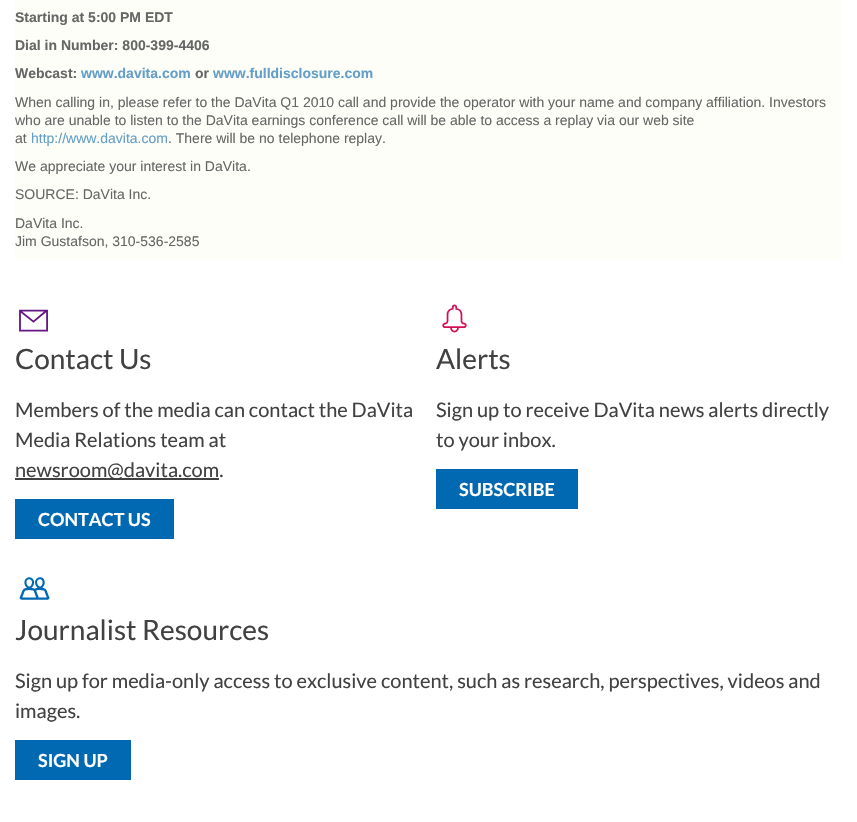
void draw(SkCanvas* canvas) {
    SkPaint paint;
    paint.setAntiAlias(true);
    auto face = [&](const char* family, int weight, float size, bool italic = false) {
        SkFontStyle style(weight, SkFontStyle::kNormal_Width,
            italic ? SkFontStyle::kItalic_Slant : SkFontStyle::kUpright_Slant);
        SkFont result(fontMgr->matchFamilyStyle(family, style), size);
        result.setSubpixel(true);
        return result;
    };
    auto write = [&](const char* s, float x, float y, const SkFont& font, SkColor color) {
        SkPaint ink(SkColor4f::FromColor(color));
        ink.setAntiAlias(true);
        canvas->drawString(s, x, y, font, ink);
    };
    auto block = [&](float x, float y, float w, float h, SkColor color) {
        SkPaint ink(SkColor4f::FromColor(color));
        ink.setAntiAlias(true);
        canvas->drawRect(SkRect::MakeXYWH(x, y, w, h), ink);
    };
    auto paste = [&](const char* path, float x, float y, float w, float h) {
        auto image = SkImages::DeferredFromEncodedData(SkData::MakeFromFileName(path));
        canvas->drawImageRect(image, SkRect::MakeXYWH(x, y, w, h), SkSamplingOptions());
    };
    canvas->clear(SK_ColorWHITE);
    block(15, 0, 827, 260, SkColorSetRGB(254, 254, 249));
    auto kFont1 = face("Liberation Sans", 700, 14);
    write("Starting at 5:00 PM EDT", 15, 22, kFont1, SkColorSetRGB(102, 102, 102));
    write("Dial in Number: 800-399-4406", 15, 50, kFont1, SkColorSetRGB(102, 102, 102));
    write("Webcast:", 15, 78, kFont1, SkColorSetRGB(102, 102, 102));
    write("www.davita.com", 81, 78, kFont1, SkColorSetRGB(99, 158, 200));
    write("or", 195, 78, kFont1, SkColorSetRGB(102, 102, 102));
    write("www.fulldisclosure.com", 213, 78, kFont1, SkColorSetRGB(99, 158, 200));
    auto kFont2 = face("Liberation Sans", 400, 14);
    write("When calling in, please refer to the DaVita Q1 2010 call and provide the operator with your name and company affiliation. Investors", 15, 107, kFont2, SkColorSetRGB(102, 102, 102));
    write("who are unable to listen to the DaVita earnings conference call will be able to access a replay via our web site", 15, 125, kFont2, SkColorSetRGB(102, 102, 102));
    write("at", 15, 143, kFont2, SkColorSetRGB(102, 102, 102));
    write("http://www.davita.com", 31, 143, kFont2, SkColorSetRGB(99, 158, 200));
    write(". There will be no telephone replay.", 168, 143, kFont2, SkColorSetRGB(102, 102, 102));
    write("We appreciate your interest in DaVita.", 15, 171, kFont2, SkColorSetRGB(102, 102, 102));
    write("SOURCE: DaVita Inc.", 15, 199, kFont2, SkColorSetRGB(102, 102, 102));
    write("DaVita Inc.", 15, 228, kFont2, SkColorSetRGB(102, 102, 102));
    write("Jim Gustafson, 310-536-2585", 15, 246, kFont2, SkColorSetRGB(102, 102, 102));
    paste("pic1.png", 19, 309, 29, 23);
    auto kFont3 = face("Lato", 400, 28);
    write("Contact Us", 15, 369, kFont3, SkColorSetRGB(65, 65, 65));
    auto kFont4 = face("Lato", 400, 20);
    write("Members of the media can contact the DaVita", 15, 417, kFont4, SkColorSetRGB(65, 65, 65));
    write("Media Relations team at", 15, 447, kFont4, SkColorSetRGB(65, 65, 65));
    block(15, 478, 204, 2, SkColorSetRGB(65, 65, 65));
    write("newsroom@davita.com.", 15, 477, kFont4, SkColorSetRGB(65, 65, 65));
    block(15, 499, 159, 40, SkColorSetRGB(0, 105, 177));
    auto kFont5 = face("Lato", 700, 18);
    write("CONTACT US", 38, 526, kFont5, SK_ColorWHITE);
    paste("pic2.png", 442, 304, 25, 29);
    write("Alerts", 436, 369, kFont3, SkColorSetRGB(65, 65, 65));
    write("Sign up to receive DaVita news alerts directly", 436, 417, kFont4, SkColorSetRGB(65, 65, 65));
    write("to your inbox.", 436, 447, kFont4, SkColorSetRGB(65, 65, 65));
    block(436, 469, 142, 40, SkColorSetRGB(0, 105, 177));
    write("SUBSCRIBE", 459, 496, kFont5, SK_ColorWHITE);
    paste("pic3.png", 19, 577, 31, 23);
    write("Journalist Resources", 15, 640, kFont3, SkColorSetRGB(65, 65, 65));
    write("Sign up for media-only access to exclusive content, such as research, perspectives, videos and", 15, 688, kFont4, SkColorSetRGB(65, 65, 65));
    write("images.", 15, 718, kFont4, SkColorSetRGB(65, 65, 65));
    block(15, 740, 116, 40, SkColorSetRGB(0, 105, 177));
    write("SIGN UP", 38, 767, kFont5, SK_ColorWHITE);
}
